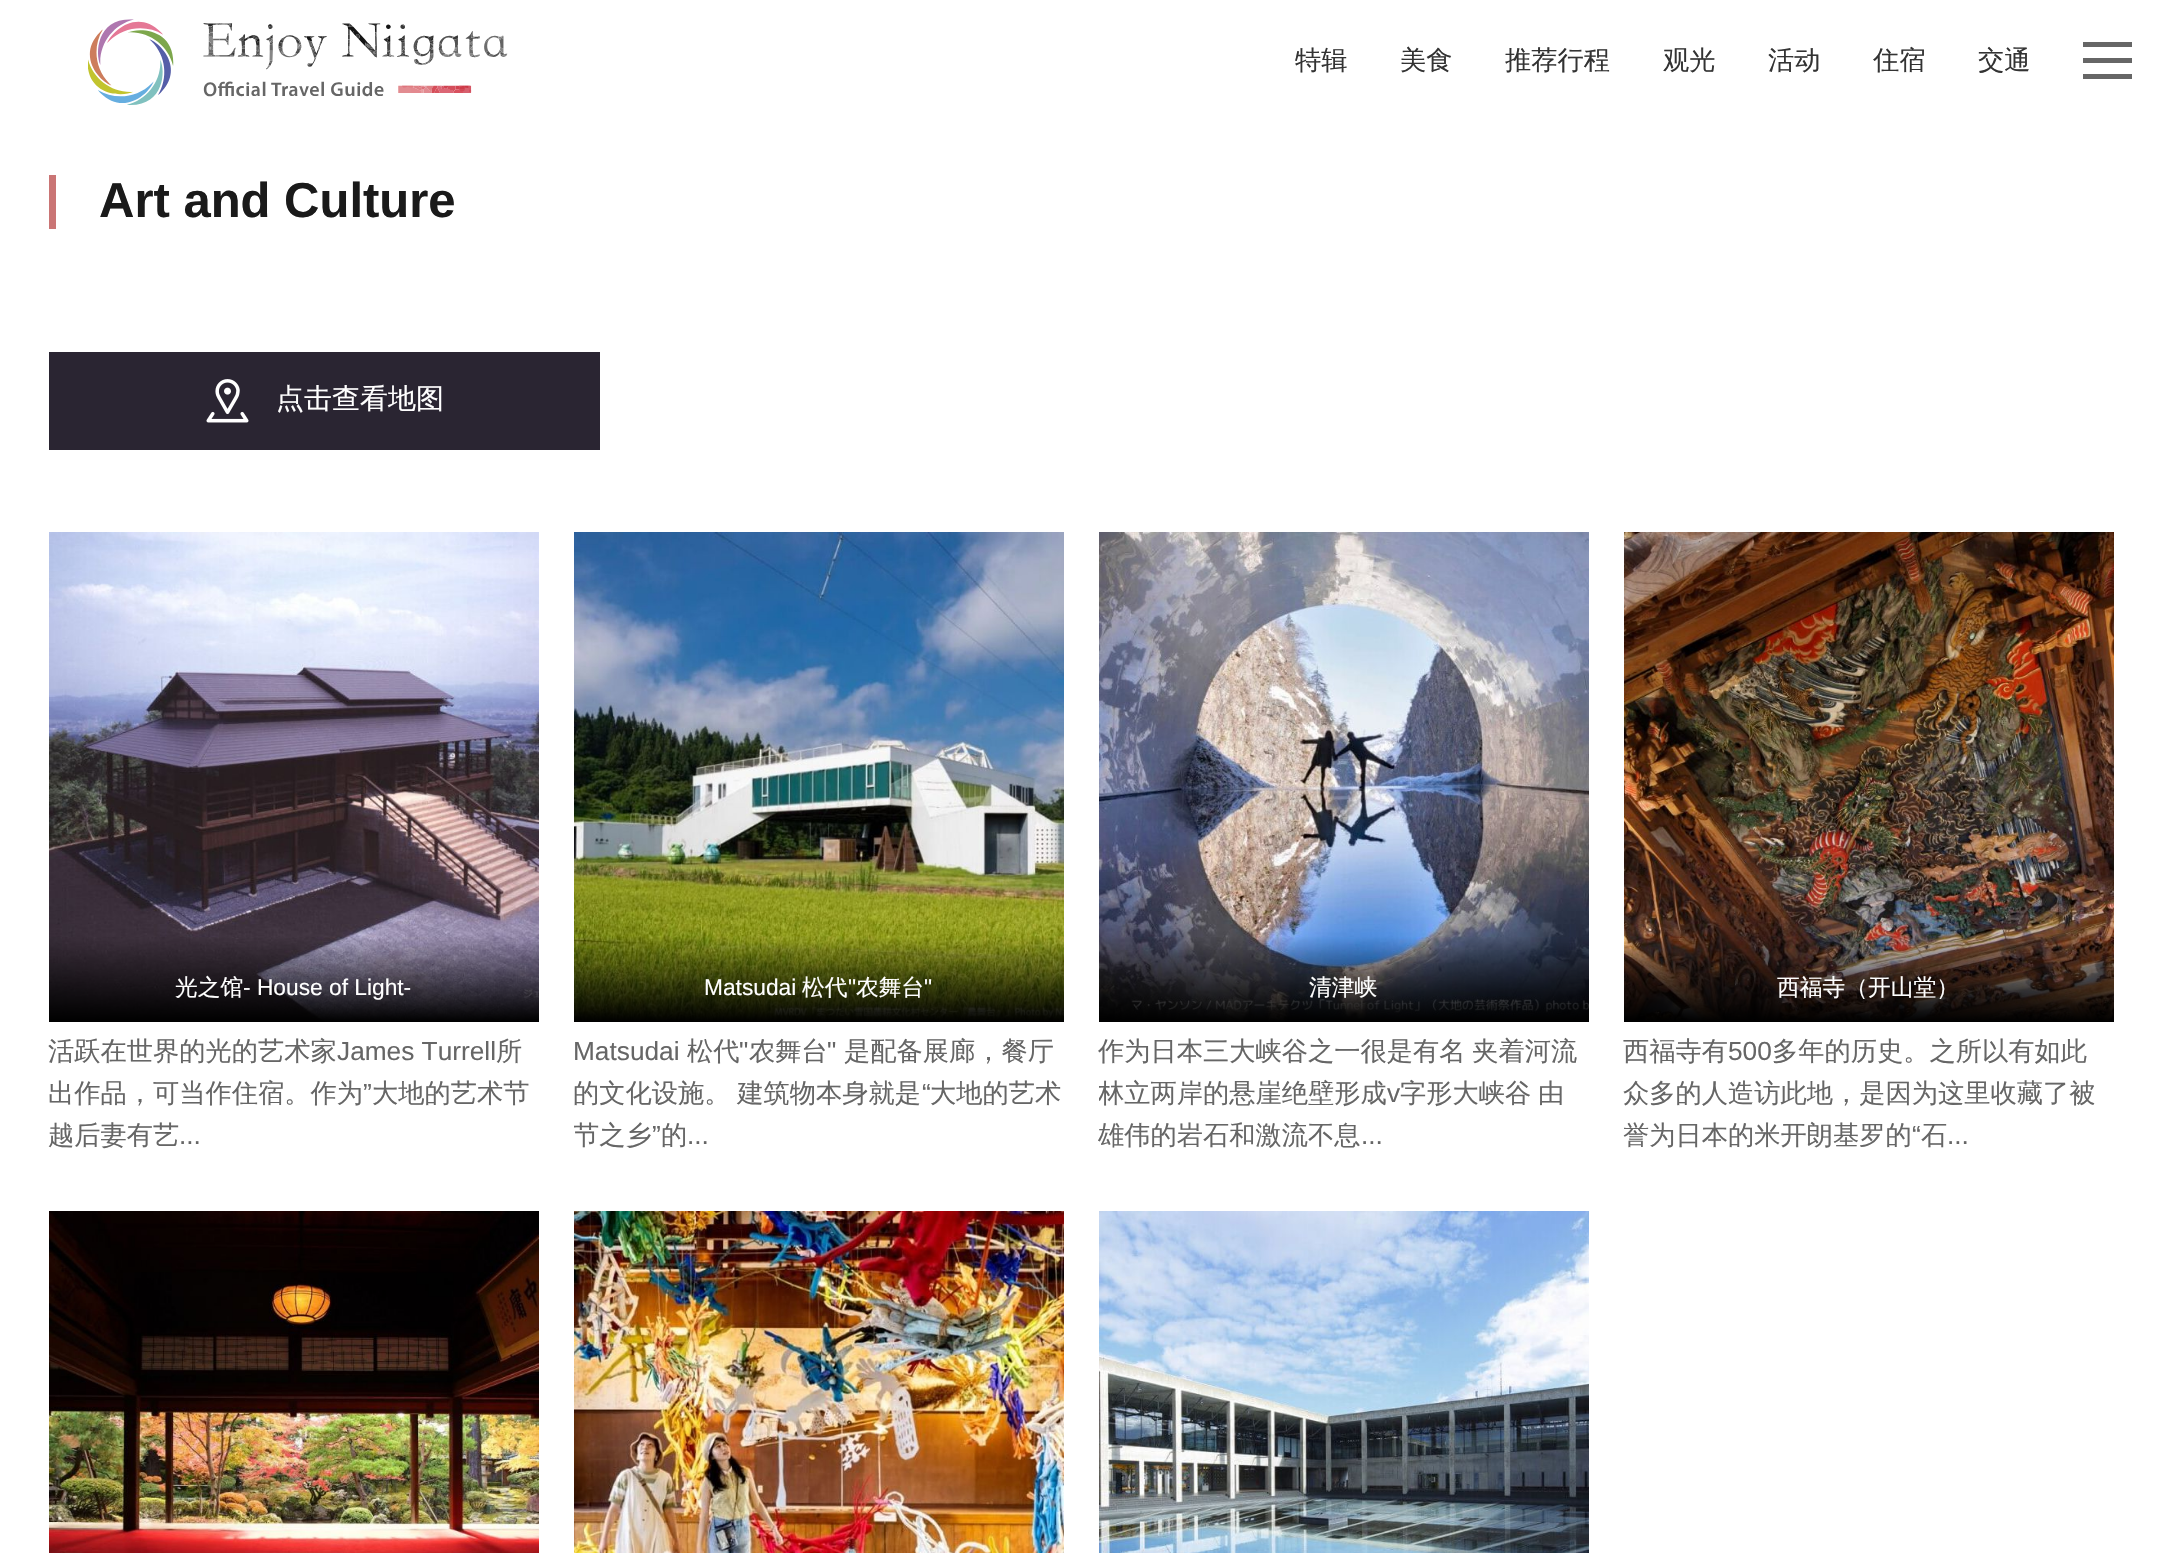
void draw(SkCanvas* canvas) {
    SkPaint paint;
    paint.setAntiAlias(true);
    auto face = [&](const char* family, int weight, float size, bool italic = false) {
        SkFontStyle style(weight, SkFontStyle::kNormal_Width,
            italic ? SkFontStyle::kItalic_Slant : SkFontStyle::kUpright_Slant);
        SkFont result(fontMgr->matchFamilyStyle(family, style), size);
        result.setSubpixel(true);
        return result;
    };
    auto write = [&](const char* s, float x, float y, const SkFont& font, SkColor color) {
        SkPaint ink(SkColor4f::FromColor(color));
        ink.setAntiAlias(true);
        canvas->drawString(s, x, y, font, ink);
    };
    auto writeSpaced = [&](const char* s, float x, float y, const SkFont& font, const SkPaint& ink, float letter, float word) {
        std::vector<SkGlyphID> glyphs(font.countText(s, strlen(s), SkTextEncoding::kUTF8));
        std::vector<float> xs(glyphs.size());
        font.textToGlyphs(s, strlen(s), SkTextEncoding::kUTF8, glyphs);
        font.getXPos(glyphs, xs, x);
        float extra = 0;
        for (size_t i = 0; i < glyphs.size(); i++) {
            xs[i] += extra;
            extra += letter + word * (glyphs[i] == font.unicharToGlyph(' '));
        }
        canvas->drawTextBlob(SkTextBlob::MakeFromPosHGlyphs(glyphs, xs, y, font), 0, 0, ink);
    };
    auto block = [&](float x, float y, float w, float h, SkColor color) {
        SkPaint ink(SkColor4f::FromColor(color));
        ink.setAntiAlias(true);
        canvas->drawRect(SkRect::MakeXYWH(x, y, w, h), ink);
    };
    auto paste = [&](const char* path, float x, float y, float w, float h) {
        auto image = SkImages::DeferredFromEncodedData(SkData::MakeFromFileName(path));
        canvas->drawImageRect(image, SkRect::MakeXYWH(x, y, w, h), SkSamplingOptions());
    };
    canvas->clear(SK_ColorWHITE);
    paste("pic1.png", 88, 19, 420, 86);
    auto kFont1 = face("WenQuanYi Zen Hei", 500, 26.25f);
    write("特辑", 1295, 69, kFont1, SkColorSetRGB(51, 51, 51));
    write("美食", 1400, 69, kFont1, SkColorSetRGB(51, 51, 51));
    write("推荐行程", 1505, 69, kFont1, SkColorSetRGB(51, 51, 51));
    write("观光", 1663, 69, kFont1, SkColorSetRGB(51, 51, 51));
    write("活动", 1768, 69, kFont1, SkColorSetRGB(51, 51, 51));
    write("住宿", 1873, 69, kFont1, SkColorSetRGB(51, 51, 51));
    write("交通", 1978, 69, kFont1, SkColorSetRGB(51, 51, 51));
    block(2083, 58, 49, 5, SkColorSetRGB(102, 102, 102));
    block(2083, 42, 49, 5, SkColorSetRGB(102, 102, 102));
    block(2083, 74, 49, 5, SkColorSetRGB(102, 102, 102));
    block(49, 175, 7, 54, SkColorSetRGB(202, 117, 117));
    auto kFont2 = face("Liberation Sans", 700, 49);
    write("Art and Culture", 99, 217, kFont2, SkColorSetRGB(26, 26, 26));
    block(49, 352, 551, 98, SkColorSetRGB(42, 37, 50));
    paste("pic2.png", 206, 379, 43, 44);
    auto kFont3 = face("WenQuanYi Zen Hei", 500, 28);
    write("点击查看地图", 276, 408, kFont3, SK_ColorWHITE);
    paste("pic3.png", 49, 532, 490, 490);
    auto kFont4 = face("WenQuanYi Zen Hei", 500, 22.75f);
    write("光之馆", 175, 995, kFont4, SK_ColorWHITE);
    auto kFont5 = face("Liberation Sans", 400, 22.75f);
    write("- House of Light-", 243, 995, kFont5, SK_ColorWHITE);
    write("活跃在世界的光的艺术家", 48, 1060, kFont1, SkColorSetRGB(102, 102, 102));
    auto kFont6 = face("Liberation Sans", 400, 26.25f);
    write("James Turrell", 337, 1060, kFont6, SkColorSetRGB(102, 102, 102));
    write("所", 496, 1060, kFont1, SkColorSetRGB(102, 102, 102));
    write("出作品，可当作住宿。作为", 48, 1102, kFont1, SkColorSetRGB(102, 102, 102));
    write("”", 363, 1102, kFont6, SkColorSetRGB(102, 102, 102));
    write("大地的艺术节", 372, 1102, kFont1, SkColorSetRGB(102, 102, 102));
    write("越后妻有艺", 48, 1144, kFont1, SkColorSetRGB(102, 102, 102));
    write("...", 179, 1144, kFont6, SkColorSetRGB(102, 102, 102));
    paste("pic4.png", 574, 532, 490, 490);
    write("Matsudai", 704, 995, kFont5, SK_ColorWHITE);
    write("松代", 802, 995, kFont4, SK_ColorWHITE);
    write("\"", 848, 995, kFont5, SK_ColorWHITE);
    write("农舞台", 856, 995, kFont4, SK_ColorWHITE);
    write("\"", 924, 995, kFont5, SK_ColorWHITE);
    write("Matsudai", 573, 1060, kFont6, SkColorSetRGB(102, 102, 102));
    write("松代", 687, 1060, kFont1, SkColorSetRGB(102, 102, 102));
    write("\"", 739, 1060, kFont6, SkColorSetRGB(102, 102, 102));
    write("农舞台", 749, 1060, kFont1, SkColorSetRGB(102, 102, 102));
    write("\"", 827, 1060, kFont6, SkColorSetRGB(102, 102, 102));
    write("是配备展廊，餐厅", 844, 1060, kFont1, SkColorSetRGB(102, 102, 102));
    paint.setColor(SkColorSetRGB(102, 102, 102));
    writeSpaced("的文化设施。 建筑物本身就是", 573, 1102, kFont1, paint, 0, -1);
    write("“", 922, 1102, kFont6, SkColorSetRGB(102, 102, 102));
    write("大地的艺术", 930, 1102, kFont1, SkColorSetRGB(102, 102, 102));
    canvas->save();
    canvas->clipRect(SkRect::MakeXYWH(574, 1031, 490, 145));
    write("节之乡", 573, 1144, kFont1, SkColorSetRGB(102, 102, 102));
    canvas->restore();
    write("”", 652, 1144, kFont6, SkColorSetRGB(102, 102, 102));
    write("的", 661, 1144, kFont1, SkColorSetRGB(102, 102, 102));
    write("...", 687, 1144, kFont6, SkColorSetRGB(102, 102, 102));
    paste("pic5.png", 1099, 532, 490, 490);
    write("清津峡", 1309, 995, kFont4, SK_ColorWHITE);
    writeSpaced("作为日本三大峡谷之一很是有名 夹着河流", 1098, 1060, kFont1, paint, 0, -1);
    canvas->save();
    canvas->clipRect(SkRect::MakeXYWH(1099, 1031, 490, 145));
    write("林立两岸的悬崖绝壁形成", 1098, 1102, kFont1, SkColorSetRGB(102, 102, 102));
    canvas->restore();
    write("v", 1387, 1102, kFont6, SkColorSetRGB(102, 102, 102));
    writeSpaced("字形大峡谷 由", 1400, 1102, kFont1, paint, 0, -1);
    write("雄伟的岩石和激流不息", 1098, 1144, kFont1, SkColorSetRGB(102, 102, 102));
    write("...", 1361, 1144, kFont6, SkColorSetRGB(102, 102, 102));
    paste("pic6.png", 1624, 532, 490, 490);
    write("西福寺（开山堂）", 1777, 995, kFont4, SK_ColorWHITE);
    write("西福寺有", 1623, 1060, kFont1, SkColorSetRGB(102, 102, 102));
    write("500", 1728, 1060, kFont6, SkColorSetRGB(102, 102, 102));
    write("多年的历史。之所以有如此", 1772, 1060, kFont1, SkColorSetRGB(102, 102, 102));
    write("众多的人造访此地，是因为这里收藏了被", 1623, 1102, kFont1, SkColorSetRGB(102, 102, 102));
    write("誉为日本的米开朗基罗的", 1623, 1144, kFont1, SkColorSetRGB(102, 102, 102));
    write("“", 1912, 1144, kFont6, SkColorSetRGB(102, 102, 102));
    write("石", 1921, 1144, kFont1, SkColorSetRGB(102, 102, 102));
    write("...", 1947, 1144, kFont6, SkColorSetRGB(102, 102, 102));
    paste("pic7.png", 49, 1211, 490, 342);
    paste("pic8.png", 574, 1211, 490, 342);
    paste("pic9.png", 1099, 1211, 490, 342);
}
